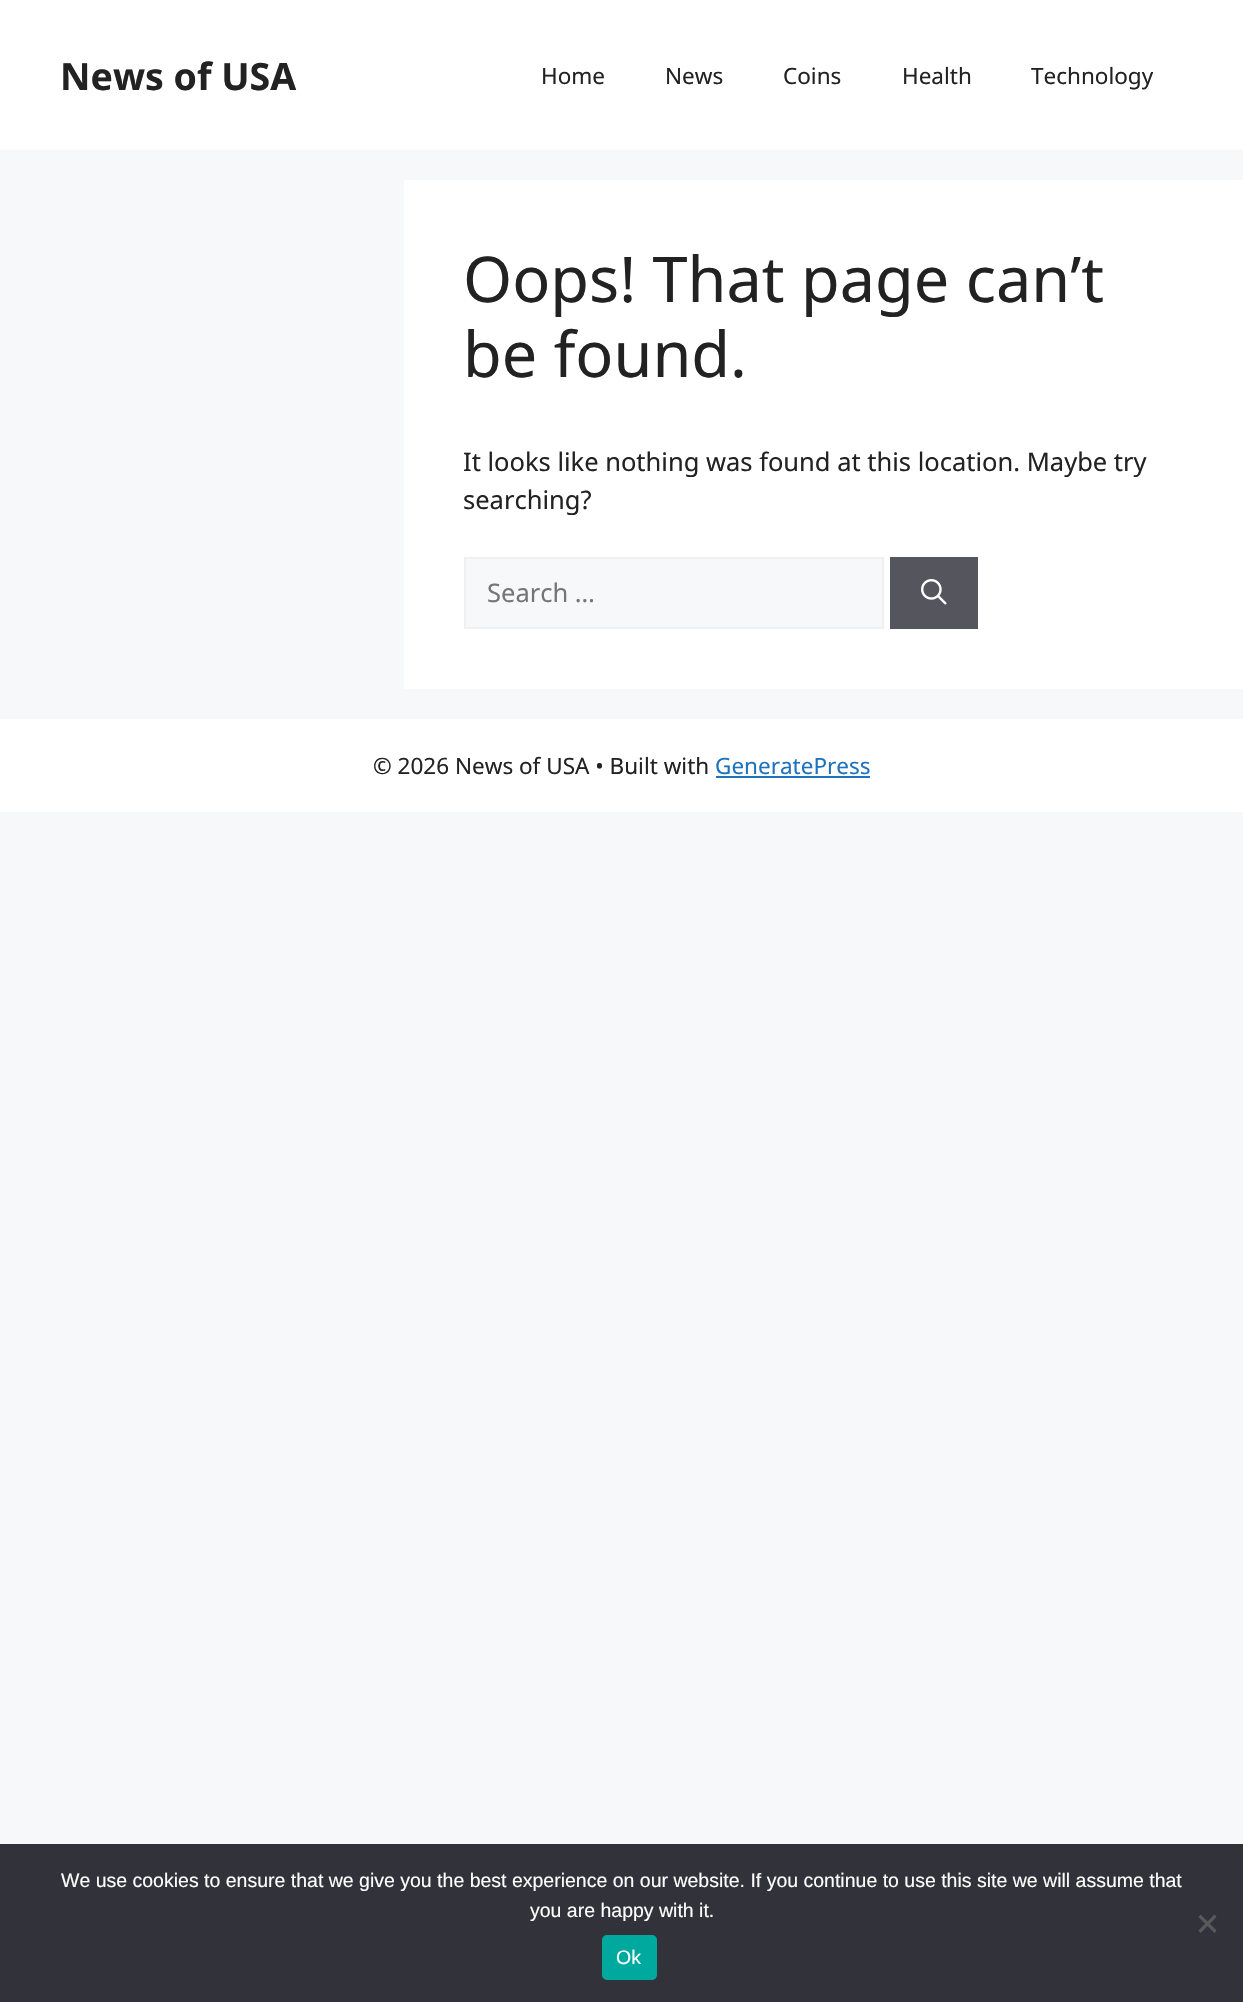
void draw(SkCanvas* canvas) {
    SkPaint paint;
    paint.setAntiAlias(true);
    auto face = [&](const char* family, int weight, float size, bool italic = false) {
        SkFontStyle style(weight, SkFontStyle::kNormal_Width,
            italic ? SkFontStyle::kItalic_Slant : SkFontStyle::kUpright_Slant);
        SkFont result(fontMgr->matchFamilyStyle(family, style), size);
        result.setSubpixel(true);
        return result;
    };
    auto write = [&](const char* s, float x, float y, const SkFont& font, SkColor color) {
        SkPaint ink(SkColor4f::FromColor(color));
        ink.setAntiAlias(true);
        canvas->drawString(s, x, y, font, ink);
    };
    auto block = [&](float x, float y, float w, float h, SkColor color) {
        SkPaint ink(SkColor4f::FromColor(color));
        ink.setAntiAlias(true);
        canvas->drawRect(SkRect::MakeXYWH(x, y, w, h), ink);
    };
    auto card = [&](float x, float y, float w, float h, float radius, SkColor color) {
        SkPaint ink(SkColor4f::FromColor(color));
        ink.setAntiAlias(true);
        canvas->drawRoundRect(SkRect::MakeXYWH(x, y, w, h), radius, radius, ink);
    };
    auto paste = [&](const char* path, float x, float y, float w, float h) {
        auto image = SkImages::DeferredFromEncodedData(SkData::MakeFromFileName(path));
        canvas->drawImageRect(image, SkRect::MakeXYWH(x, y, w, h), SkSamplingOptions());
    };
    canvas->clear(SkColorSetRGB(247, 248, 249));
    block(0, 0, 1243, 150, SK_ColorWHITE);
    auto kFont1 = face("Noto Sans", 700, 37.5f);
    write("News of USA", 60, 90, kFont1, SkColorSetRGB(34, 34, 34));
    auto kFont2 = face("Noto Sans", 400, 22.5f);
    write("Home", 541, 84, kFont2, SkColorSetRGB(34, 34, 34));
    write("News", 665, 84, kFont2, SkColorSetRGB(34, 34, 34));
    write("Coins", 783, 84, kFont2, SkColorSetRGB(34, 34, 34));
    write("Health", 902, 84, kFont2, SkColorSetRGB(34, 34, 34));
    write("Technology", 1031, 84, kFont2, SkColorSetRGB(34, 34, 34));
    block(404, 180, 839, 509, SK_ColorWHITE);
    auto kFont3 = face("Noto Sans", 400, 63);
    write("Oops! That page can’t", 463, 302, kFont3, SkColorSetRGB(34, 34, 34));
    write("be found.", 463, 377, kFont3, SkColorSetRGB(34, 34, 34));
    auto kFont4 = face("Noto Sans", 400, 25.5f);
    write("It looks like nothing was found at this location. Maybe try", 463, 471, kFont4, SkColorSetRGB(34, 34, 34));
    write("searching?", 463, 509, kFont4, SkColorSetRGB(34, 34, 34));
    paint.setColor(SkColorSetRGB(247, 248, 249));
    canvas->drawRect(SkRect::MakeXYWH(465, 558, 418, 70), paint);
    paint.setStyle(SkPaint::kStroke_Style);
    paint.setStrokeWidth(2);
    paint.setColor(SkColorSetRGB(240, 240, 240));
    canvas->drawRect(SkRect::MakeXYWH(465, 558, 418, 70), paint);
    write("Search …", 487, 602, kFont4, SkColorSetRGB(117, 117, 117));
    block(890, 557, 88, 72, SkColorSetRGB(85, 85, 94));
    paste("pic1.png", 921, 579, 26, 26);
    block(0, 719, 1243, 93, SK_ColorWHITE);
    write("© 2026 News of USA • Built with", 373, 774, kFont2, SkColorSetRGB(34, 34, 34));
    write("GeneratePress", 715, 774, kFont2, SkColorSetRGB(30, 115, 190));
    block(716, 776, 154, 2, SkColorSetRGB(30, 115, 190));
    block(0, 1844, 1243, 158, SkColorSetRGB(50, 50, 58));
    auto kFont5 = face("Liberation Sans", 400, 19.5f);
    write("We use cookies to ensure that we give you the best experience on our website. If you continue to use this site we will assume that", 61, 1887, kFont5, SK_ColorWHITE);
    write("you are happy with it.", 530, 1917, kFont5, SK_ColorWHITE);
    paint.setStyle(SkPaint::kFill_Style);
    paint.setColor(SkColorSetRGB(89, 89, 93));
    canvas->drawPath(SkPathBuilder().moveTo(1214.5f, 1914.5f).lineTo(1216.5f, 1917).lineTo(1200.5f, 1933).lineTo(1198.5f, 1930.5f).close().detach(), paint);
    canvas->drawPath(SkPathBuilder().moveTo(1198.5f, 1917).lineTo(1200.5f, 1914.5f).lineTo(1216.5f, 1930.5f).lineTo(1214.5f, 1933).close().detach(), paint);
    card(602, 1935, 55, 45, 5, SkColorSetRGB(0, 169, 157));
    write("Ok", 616, 1964, kFont5, SK_ColorWHITE);
}
